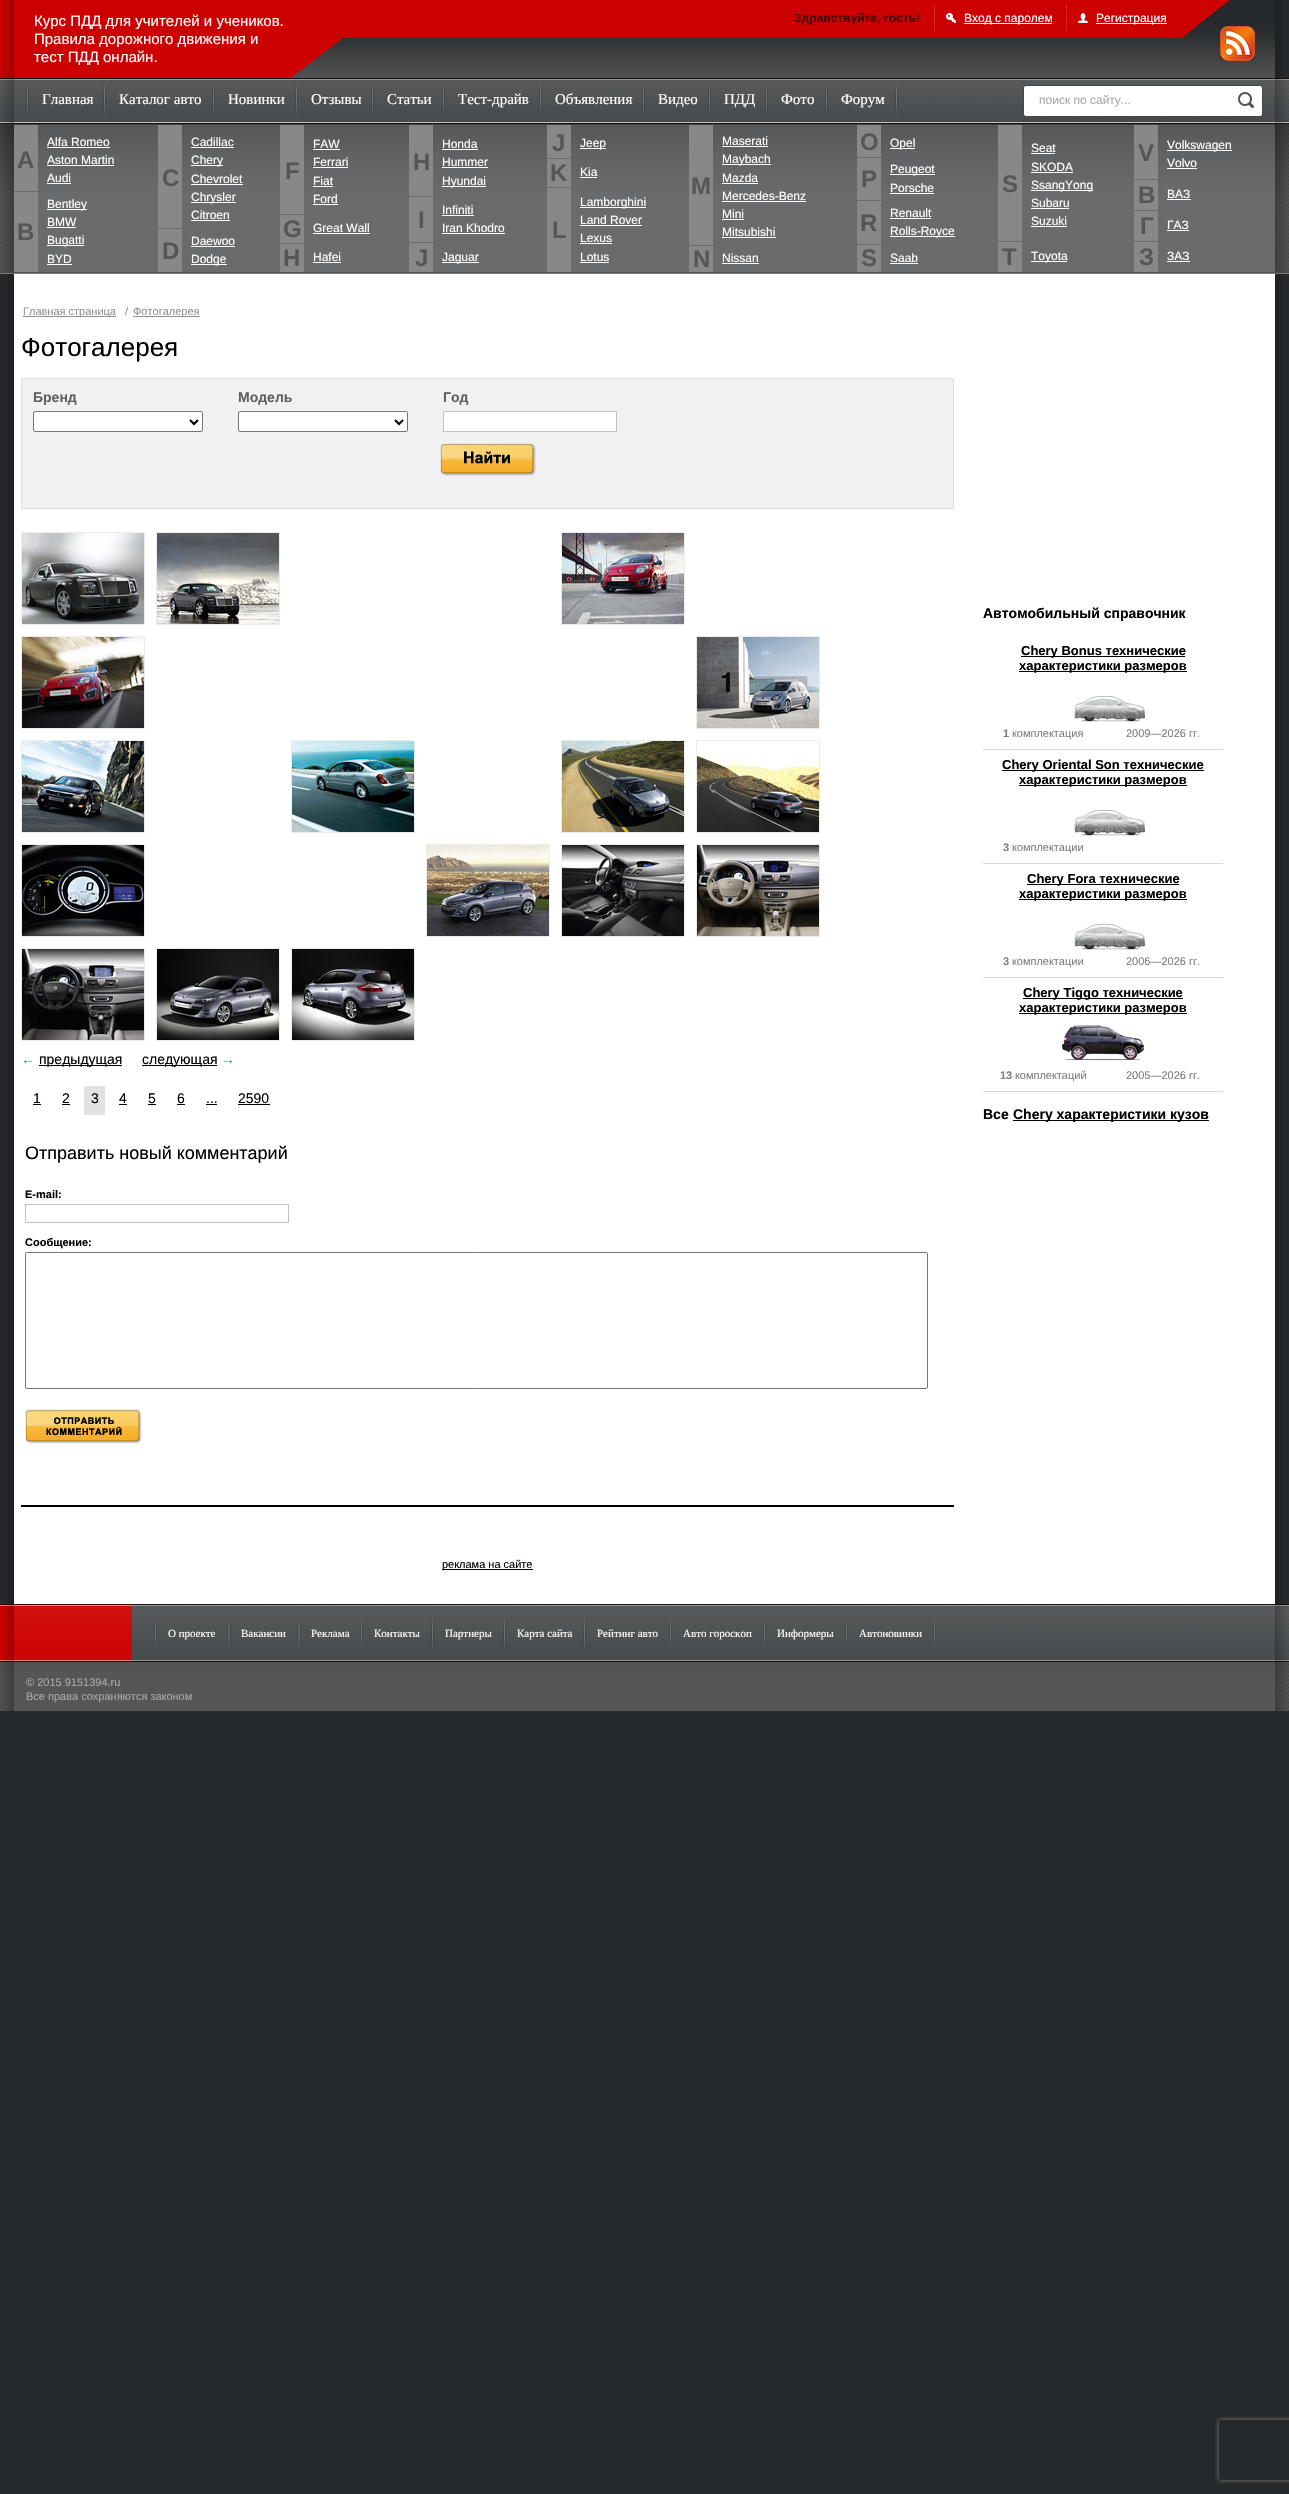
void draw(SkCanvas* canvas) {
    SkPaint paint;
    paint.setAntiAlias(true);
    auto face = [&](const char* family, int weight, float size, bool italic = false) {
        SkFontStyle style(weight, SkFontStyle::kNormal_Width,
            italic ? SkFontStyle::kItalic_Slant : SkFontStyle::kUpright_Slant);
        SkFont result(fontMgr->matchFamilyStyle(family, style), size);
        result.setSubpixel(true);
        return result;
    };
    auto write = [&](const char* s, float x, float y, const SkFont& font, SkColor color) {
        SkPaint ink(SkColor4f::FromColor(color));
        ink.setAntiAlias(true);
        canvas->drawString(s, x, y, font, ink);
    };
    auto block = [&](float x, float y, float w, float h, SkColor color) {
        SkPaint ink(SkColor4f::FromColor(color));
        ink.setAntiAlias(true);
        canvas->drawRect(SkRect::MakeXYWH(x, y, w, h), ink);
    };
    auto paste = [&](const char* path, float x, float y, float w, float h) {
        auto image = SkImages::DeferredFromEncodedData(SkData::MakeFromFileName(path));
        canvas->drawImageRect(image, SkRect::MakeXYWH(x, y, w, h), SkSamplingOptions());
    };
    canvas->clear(SkColorSetRGB(38, 41, 43));
    block(0, 0, 290, 78, SkColorSetRGB(204, 0, 0));
    paste("pic1.png", 1275, 0, 7, 78);
    paste("pic2.png", 2, 0, 12, 78);
    paste("pic3.png", 290, 38, 985, 40);
    block(290, 0, 891, 38, SkColorSetRGB(204, 0, 0));
    auto kFont1 = face("Liberation Sans", 400, 15);
    write("Курс ПДД для учителей и учеников.", 34, 26, kFont1, SK_ColorWHITE);
    write("Правила дорожного движения и", 34, 44, kFont1, SK_ColorWHITE);
    write("тест ПДД онлайн.", 34, 62, kFont1, SK_ColorWHITE);
    paste("pic4.png", 290, 38, 53, 40);
    block(934, 5, 1, 26, SkColorSetRGB(212, 39, 38));
    auto kFont2 = face("Liberation Sans", 700, 12);
    write("Здравствуйте, гость!", 794, 22, kFont2, SkColorSetRGB(68, 0, 0));
    block(1066, 5, 1, 26, SkColorSetRGB(212, 39, 38));
    paste("pic5.png", 946, 13, 10, 10);
    block(964, 23, 88, 1, SK_ColorWHITE);
    auto kFont3 = face("Liberation Sans", 400, 12);
    write("Вход с паролем", 964, 22, kFont3, SK_ColorWHITE);
    paste("pic6.png", 1078, 13, 10, 10);
    block(1096, 23, 71, 1, SK_ColorWHITE);
    write("Регистрация", 1096, 22, kFont3, SK_ColorWHITE);
    paste("pic7.png", 1181, 0, 94, 38);
    paste("pic8.png", 1181, 0, 49, 38);
    paste("pic9.png", 1220, 26, 35, 35);
    paste("pic10.png", 0, 78, 1289, 46);
    paste("pic11.png", 1275, 78, 12, 45);
    paste("pic12.png", 2, 78, 12, 45);
    paste("pic13.png", 26, 82, 3, 34);
    auto kFont4 = face("Liberation Serif", 400, 15);
    write("Главная", 42, 104, kFont4, SK_ColorWHITE);
    paste("pic14.png", 103, 83, 3, 33);
    write("Каталог авто", 119, 104, kFont4, SK_ColorWHITE);
    paste("pic13.png", 212, 82, 3, 34);
    write("Новинки", 228, 104, kFont4, SK_ColorWHITE);
    paste("pic15.png", 295, 83, 3, 33);
    write("Отзывы", 311, 104, kFont4, SK_ColorWHITE);
    paste("pic16.png", 371, 82, 3, 34);
    write("Статьи", 387, 104, kFont4, SK_ColorWHITE);
    paste("pic17.png", 442, 83, 3, 33);
    write("Тест-драйв", 458, 104, kFont4, SK_ColorWHITE);
    paste("pic18.png", 539, 83, 3, 33);
    write("Объявления", 555, 104, kFont4, SK_ColorWHITE);
    paste("pic19.png", 642, 82, 3, 34);
    write("Видео", 658, 104, kFont4, SK_ColorWHITE);
    paste("pic13.png", 708, 82, 3, 34);
    write("ПДД", 724, 104, kFont4, SK_ColorWHITE);
    paste("pic20.png", 765, 83, 3, 33);
    write("Фото", 781, 104, kFont4, SK_ColorWHITE);
    paste("pic21.png", 825, 83, 3, 33);
    write("Форум", 841, 104, kFont4, SK_ColorWHITE);
    paste("pic22.png", 895, 83, 3, 33);
    paste("pic23.png", 1023, 85, 240, 32);
    write("поиск по сайту...", 1039, 104, kFont3, SkColorSetRGB(169, 169, 169));
    paste("pic24.png", 1238, 92, 16, 16);
    paste("pic25.png", 0, 124, 1289, 149);
    block(0, 273, 1289, 1, SkColorSetRGB(120, 121, 121));
    paste("pic26.png", 1275, 124, 11, 149);
    paste("pic27.png", 3, 124, 11, 149);
    paste("pic28.png", 38, 125, 1237, 147);
    block(14, 124, 1261, 1, SkColorSetRGB(64, 66, 67));
    block(14, 272, 1261, 1, SkColorSetRGB(84, 86, 88));
    block(14, 125, 24, 147, SkColorSetRGB(135, 136, 137));
    auto kFont5 = face("Liberation Sans", 700, 24);
    write("A", 17, 168, kFont5, SkColorSetRGB(84, 86, 88));
    write("Alfa Romeo", 47, 146, kFont3, SK_ColorWHITE);
    block(47, 147, 63, 1, SK_ColorWHITE);
    write("Aston Martin", 47, 164, kFont3, SK_ColorWHITE);
    block(47, 165, 67, 1, SK_ColorWHITE);
    write("Audi", 47, 182, kFont3, SK_ColorWHITE);
    block(47, 183, 24, 1, SK_ColorWHITE);
    block(14, 191, 24, 1, SkColorSetRGB(106, 107, 109));
    write("B", 17, 240, kFont5, SkColorSetRGB(84, 86, 88));
    block(47, 209, 40, 1, SK_ColorWHITE);
    write("Bentley", 47, 208, kFont3, SK_ColorWHITE);
    write("BMW", 47, 226, kFont3, SK_ColorWHITE);
    block(47, 227, 29, 1, SK_ColorWHITE);
    block(47, 245, 37, 1, SK_ColorWHITE);
    write("Bugatti", 47, 244, kFont3, SK_ColorWHITE);
    write("BYD", 47, 263, kFont3, SK_ColorWHITE);
    block(47, 264, 25, 1, SK_ColorWHITE);
    block(158, 125, 24, 147, SkColorSetRGB(135, 136, 137));
    write("C", 162, 186, kFont5, SkColorSetRGB(84, 86, 88));
    write("Cadillac", 191, 146, kFont3, SK_ColorWHITE);
    block(191, 147, 43, 1, SK_ColorWHITE);
    block(191, 165, 32, 1, SK_ColorWHITE);
    write("Chery", 191, 164, kFont3, SK_ColorWHITE);
    write("Chevrolet", 191, 183, kFont3, SK_ColorWHITE);
    block(191, 184, 52, 1, SK_ColorWHITE);
    block(191, 202, 45, 1, SK_ColorWHITE);
    write("Chrysler", 191, 201, kFont3, SK_ColorWHITE);
    write("Citroen", 191, 219, kFont3, SK_ColorWHITE);
    block(191, 220, 39, 1, SK_ColorWHITE);
    block(158, 228, 24, 1, SkColorSetRGB(106, 107, 109));
    write("D", 162, 259, kFont5, SkColorSetRGB(84, 86, 88));
    write("Daewoo", 191, 245, kFont3, SK_ColorWHITE);
    block(191, 246, 44, 1, SK_ColorWHITE);
    block(191, 264, 36, 1, SK_ColorWHITE);
    write("Dodge", 191, 263, kFont3, SK_ColorWHITE);
    block(280, 125, 24, 147, SkColorSetRGB(135, 136, 137));
    write("F", 285, 179, kFont5, SkColorSetRGB(84, 86, 88));
    write("FAW", 313, 148, kFont3, SK_ColorWHITE);
    block(313, 149, 27, 1, SK_ColorWHITE);
    write("Ferrari", 313, 166, kFont3, SK_ColorWHITE);
    block(313, 167, 35, 1, SK_ColorWHITE);
    write("Fiat", 313, 185, kFont3, SK_ColorWHITE);
    block(313, 186, 20, 1, SK_ColorWHITE);
    write("Ford", 313, 203, kFont3, SK_ColorWHITE);
    block(313, 204, 25, 1, SK_ColorWHITE);
    block(280, 214, 24, 1, SkColorSetRGB(106, 107, 109));
    write("G", 283, 237, kFont5, SkColorSetRGB(84, 86, 88));
    write("Great Wall", 313, 232, kFont3, SK_ColorWHITE);
    block(313, 233, 57, 1, SK_ColorWHITE);
    block(280, 243, 24, 1, SkColorSetRGB(106, 107, 109));
    write("H", 283, 266, kFont5, SkColorSetRGB(84, 86, 88));
    write("Hafei", 313, 261, kFont3, SK_ColorWHITE);
    block(313, 262, 28, 1, SK_ColorWHITE);
    block(409, 125, 24, 147, SkColorSetRGB(135, 136, 137));
    write("H", 413, 170, kFont5, SkColorSetRGB(84, 86, 88));
    write("Honda", 442, 148, kFont3, SK_ColorWHITE);
    block(442, 149, 36, 1, SK_ColorWHITE);
    write("Hummer", 442, 166, kFont3, SK_ColorWHITE);
    block(442, 167, 46, 1, SK_ColorWHITE);
    block(442, 186, 44, 1, SK_ColorWHITE);
    write("Hyundai", 442, 185, kFont3, SK_ColorWHITE);
    block(409, 196, 24, 1, SkColorSetRGB(106, 107, 109));
    write("I", 418, 228, kFont5, SkColorSetRGB(84, 86, 88));
    write("Infiniti", 442, 214, kFont3, SK_ColorWHITE);
    block(442, 215, 32, 1, SK_ColorWHITE);
    write("Iran Khodro", 442, 232, kFont3, SK_ColorWHITE);
    block(442, 233, 63, 1, SK_ColorWHITE);
    block(409, 242, 24, 1, SkColorSetRGB(106, 107, 109));
    write("J", 415, 266, kFont5, SkColorSetRGB(84, 86, 88));
    block(442, 262, 37, 1, SK_ColorWHITE);
    write("Jaguar", 442, 261, kFont3, SK_ColorWHITE);
    block(547, 125, 24, 147, SkColorSetRGB(135, 136, 137));
    write("J", 552, 151, kFont5, SkColorSetRGB(84, 86, 88));
    block(580, 148, 26, 1, SK_ColorWHITE);
    write("Jeep", 580, 147, kFont3, SK_ColorWHITE);
    block(547, 158, 24, 1, SkColorSetRGB(106, 107, 109));
    write("K", 550, 181, kFont5, SkColorSetRGB(84, 86, 88));
    write("Kia", 580, 176, kFont3, SK_ColorWHITE);
    block(580, 177, 17, 1, SK_ColorWHITE);
    block(547, 187, 24, 1, SkColorSetRGB(106, 107, 109));
    write("L", 552, 238, kFont5, SkColorSetRGB(84, 86, 88));
    block(580, 207, 66, 1, SK_ColorWHITE);
    write("Lamborghini", 580, 206, kFont3, SK_ColorWHITE);
    write("Land Rover", 580, 224, kFont3, SK_ColorWHITE);
    block(580, 225, 62, 1, SK_ColorWHITE);
    write("Lexus", 580, 242, kFont3, SK_ColorWHITE);
    block(580, 243, 32, 1, SK_ColorWHITE);
    write("Lotus", 580, 261, kFont3, SK_ColorWHITE);
    block(580, 262, 29, 1, SK_ColorWHITE);
    block(689, 125, 24, 147, SkColorSetRGB(135, 136, 137));
    write("M", 691, 194, kFont5, SkColorSetRGB(84, 86, 88));
    write("Maserati", 722, 145, kFont3, SK_ColorWHITE);
    block(722, 146, 46, 1, SK_ColorWHITE);
    block(722, 164, 49, 1, SK_ColorWHITE);
    write("Maybach", 722, 163, kFont3, SK_ColorWHITE);
    write("Mazda", 722, 182, kFont3, SK_ColorWHITE);
    block(722, 183, 36, 1, SK_ColorWHITE);
    write("Mercedes-Benz", 722, 200, kFont3, SK_ColorWHITE);
    block(722, 201, 84, 1, SK_ColorWHITE);
    write("Mini", 722, 218, kFont3, SK_ColorWHITE);
    block(722, 219, 22, 1, SK_ColorWHITE);
    write("Mitsubishi", 722, 236, kFont3, SK_ColorWHITE);
    block(722, 237, 54, 1, SK_ColorWHITE);
    block(689, 245, 24, 1, SkColorSetRGB(106, 107, 109));
    write("N", 693, 267, kFont5, SkColorSetRGB(84, 86, 88));
    write("Nissan", 722, 262, kFont3, SK_ColorWHITE);
    block(722, 263, 37, 1, SK_ColorWHITE);
    block(857, 125, 24, 147, SkColorSetRGB(135, 136, 137));
    write("O", 860, 150, kFont5, SkColorSetRGB(84, 86, 88));
    block(890, 148, 25, 1, SK_ColorWHITE);
    write("Opel", 890, 147, kFont3, SK_ColorWHITE);
    block(857, 157, 24, 1, SkColorSetRGB(106, 107, 109));
    write("P", 861, 187, kFont5, SkColorSetRGB(84, 86, 88));
    block(890, 174, 45, 1, SK_ColorWHITE);
    write("Peugeot", 890, 173, kFont3, SK_ColorWHITE);
    write("Porsche", 890, 192, kFont3, SK_ColorWHITE);
    block(890, 193, 44, 1, SK_ColorWHITE);
    block(857, 200, 24, 1, SkColorSetRGB(106, 107, 109));
    write("R", 860, 231, kFont5, SkColorSetRGB(84, 86, 88));
    write("Renault", 890, 217, kFont3, SK_ColorWHITE);
    block(890, 218, 41, 1, SK_ColorWHITE);
    block(890, 236, 65, 1, SK_ColorWHITE);
    write("Rolls-Royce", 890, 235, kFont3, SK_ColorWHITE);
    block(857, 244, 24, 1, SkColorSetRGB(106, 107, 109));
    write("S", 861, 266, kFont5, SkColorSetRGB(84, 86, 88));
    write("Saab", 890, 262, kFont3, SK_ColorWHITE);
    block(890, 263, 28, 1, SK_ColorWHITE);
    block(998, 125, 24, 147, SkColorSetRGB(135, 136, 137));
    write("S", 1002, 192, kFont5, SkColorSetRGB(84, 86, 88));
    write("Seat", 1031, 152, kFont3, SK_ColorWHITE);
    block(1031, 153, 24, 1, SK_ColorWHITE);
    write("SKODA", 1031, 171, kFont3, SK_ColorWHITE);
    block(1031, 172, 42, 1, SK_ColorWHITE);
    block(1031, 190, 62, 1, SK_ColorWHITE);
    write("SsangYong", 1031, 189, kFont3, SK_ColorWHITE);
    write("Subaru", 1031, 207, kFont3, SK_ColorWHITE);
    block(1031, 208, 38, 1, SK_ColorWHITE);
    write("Suzuki", 1031, 225, kFont3, SK_ColorWHITE);
    block(1031, 226, 36, 1, SK_ColorWHITE);
    block(998, 241, 24, 1, SkColorSetRGB(106, 107, 109));
    write("T", 1002, 265, kFont5, SkColorSetRGB(84, 86, 88));
    block(1031, 261, 36, 1, SK_ColorWHITE);
    write("Toyota", 1031, 260, kFont3, SK_ColorWHITE);
    block(1134, 125, 24, 147, SkColorSetRGB(135, 136, 137));
    write("V", 1138, 161, kFont5, SkColorSetRGB(84, 86, 88));
    block(1167, 150, 65, 1, SK_ColorWHITE);
    write("Volkswagen", 1167, 149, kFont3, SK_ColorWHITE);
    write("Volvo", 1167, 167, kFont3, SK_ColorWHITE);
    block(1167, 168, 30, 1, SK_ColorWHITE);
    block(1134, 179, 24, 1, SkColorSetRGB(106, 107, 109));
    write("В", 1138, 203, kFont5, SkColorSetRGB(84, 86, 88));
    write("ВАЗ", 1167, 198, kFont3, SK_ColorWHITE);
    block(1167, 199, 24, 1, SK_ColorWHITE);
    block(1134, 210, 24, 1, SkColorSetRGB(106, 107, 109));
    write("Г", 1140, 234, kFont5, SkColorSetRGB(84, 86, 88));
    write("ГАЗ", 1167, 229, kFont3, SK_ColorWHITE);
    block(1167, 230, 22, 1, SK_ColorWHITE);
    block(1134, 241, 24, 1, SkColorSetRGB(106, 107, 109));
    write("З", 1139, 265, kFont5, SkColorSetRGB(84, 86, 88));
    write("ЗАЗ", 1167, 260, kFont3, SK_ColorWHITE);
    block(1167, 261, 23, 1, SK_ColorWHITE);
    paste("pic29.png", 1275, 274, 7, 15);
    paste("pic30.png", 7, 274, 7, 15);
    block(14, 274, 1261, 1330, SK_ColorWHITE);
    paste("pic31.png", 1275, 289, 7, 1315);
    paste("pic32.png", 7, 289, 7, 1315);
    block(23, 316, 93, 1, SkColorSetRGB(145, 145, 145));
    auto kFont6 = face("Liberation Sans", 400, 11);
    write("Главная страница", 23, 315, kFont6, SkColorSetRGB(145, 145, 145));
    write("/", 125, 315, kFont6, SkColorSetRGB(145, 145, 145));
    block(133, 316, 67, 1, SkColorSetRGB(145, 145, 145));
    write("Фотогалерея", 133, 315, kFont6, SkColorSetRGB(145, 145, 145));
    auto kFont7 = face("Liberation Sans", 400, 26);
    write("Фотогалерея", 21, 356, kFont7, SK_ColorBLACK);
    paint.setColor(SkColorSetRGB(241, 241, 241));
    canvas->drawRect(SkRect::MakeXYWH(21.5f, 378.5f, 932, 130), paint);
    paint.setStyle(SkPaint::kStroke_Style);
    paint.setStrokeWidth(1);
    paint.setColor(SkColorSetRGB(223, 223, 223));
    canvas->drawRect(SkRect::MakeXYWH(21.5f, 378.5f, 932, 130), paint);
    block(21, 378, 1, 1, SkColorSetRGB(236, 236, 236));
    block(953, 378, 1, 1, SkColorSetRGB(236, 236, 236));
    auto kFont8 = face("Liberation Sans", 700, 14);
    write("Бренд", 33, 402, kFont8, SkColorSetRGB(96, 96, 96));
    paint.setStyle(SkPaint::kFill_Style);
    paint.setColor(SK_ColorWHITE);
    canvas->drawRoundRect(SkRect::MakeXYWH(33.5f, 411.5f, 169, 20), 1.5f, 1.5f, paint);
    paint.setStyle(SkPaint::kStroke_Style);
    paint.setColor(SkColorSetRGB(118, 118, 118));
    canvas->drawRoundRect(SkRect::MakeXYWH(33.5f, 411.5f, 169, 20), 1.5f, 1.5f, paint);
    paint.setStrokeWidth(2);
    paint.setColor(SK_ColorBLACK);
    canvas->drawPath(SkPathBuilder().moveTo(190, 420).lineTo(194, 424).lineTo(198, 420).detach(), paint);
    write("Модель", 238, 402, kFont8, SkColorSetRGB(96, 96, 96));
    paint.setStyle(SkPaint::kFill_Style);
    paint.setColor(SK_ColorWHITE);
    canvas->drawRoundRect(SkRect::MakeXYWH(238.5f, 411.5f, 169, 20), 1.5f, 1.5f, paint);
    paint.setStyle(SkPaint::kStroke_Style);
    paint.setStrokeWidth(1);
    paint.setColor(SkColorSetRGB(118, 118, 118));
    canvas->drawRoundRect(SkRect::MakeXYWH(238.5f, 411.5f, 169, 20), 1.5f, 1.5f, paint);
    paint.setStrokeWidth(2);
    paint.setColor(SK_ColorBLACK);
    canvas->drawPath(SkPathBuilder().moveTo(395, 420).lineTo(399, 424).lineTo(403, 420).detach(), paint);
    write("Год", 443, 402, kFont8, SkColorSetRGB(96, 96, 96));
    paint.setStyle(SkPaint::kFill_Style);
    paint.setColor(SK_ColorWHITE);
    canvas->drawRect(SkRect::MakeXYWH(443.5f, 411.5f, 173, 20), paint);
    paint.setStyle(SkPaint::kStroke_Style);
    paint.setStrokeWidth(1);
    paint.setColor(SkColorSetRGB(194, 194, 194));
    canvas->drawRect(SkRect::MakeXYWH(443.5f, 411.5f, 173, 20), paint);
    paste("pic33.png", 440, 443, 96, 33);
    block(21, 508, 1, 1, SkColorSetRGB(236, 236, 236));
    block(953, 508, 1, 1, SkColorSetRGB(236, 236, 236));
    write("Автомобильный справочник", 983, 618, kFont8, SK_ColorBLACK);
    block(983, 749, 240, 1, SkColorSetRGB(218, 218, 218));
    block(1021, 656, 164, 1, SK_ColorBLACK);
    auto kFont9 = face("Liberation Sans", 700, 13);
    write("Chery Bonus технические", 1021, 655, kFont9, SK_ColorBLACK);
    block(1019, 671, 168, 1, SK_ColorBLACK);
    write("характеристики размеров", 1019, 670, kFont9, SK_ColorBLACK);
    paste("pic34.png", 1074, 696, 71, 26);
    auto kFont10 = face("Liberation Sans", 700, 11);
    write("1", 1003, 737, kFont10, SkColorSetRGB(126, 126, 126));
    write("комплектация", 1012, 737, kFont6, SkColorSetRGB(126, 126, 126));
    write("2009—2026 гг.", 1126, 737, kFont6, SkColorSetRGB(126, 126, 126));
    block(983, 863, 240, 1, SkColorSetRGB(218, 218, 218));
    block(1002, 770, 202, 1, SK_ColorBLACK);
    write("Chery Oriental Son технические", 1002, 769, kFont9, SK_ColorBLACK);
    block(1019, 785, 168, 1, SK_ColorBLACK);
    write("характеристики размеров", 1019, 784, kFont9, SK_ColorBLACK);
    paste("pic34.png", 1074, 810, 71, 26);
    write("3", 1003, 851, kFont10, SkColorSetRGB(126, 126, 126));
    write("комплектации", 1012, 851, kFont6, SkColorSetRGB(126, 126, 126));
    block(983, 977, 240, 1, SkColorSetRGB(218, 218, 218));
    block(1027, 884, 152, 1, SK_ColorBLACK);
    write("Chery Fora технические", 1027, 883, kFont9, SK_ColorBLACK);
    block(1019, 899, 168, 1, SK_ColorBLACK);
    write("характеристики размеров", 1019, 898, kFont9, SK_ColorBLACK);
    paste("pic34.png", 1074, 924, 71, 26);
    write("3", 1003, 965, kFont10, SkColorSetRGB(126, 126, 126));
    write("комплектации", 1012, 965, kFont6, SkColorSetRGB(126, 126, 126));
    write("2006—2026 гг.", 1126, 965, kFont6, SkColorSetRGB(126, 126, 126));
    block(983, 1091, 240, 1, SkColorSetRGB(218, 218, 218));
    block(1023, 998, 160, 1, SK_ColorBLACK);
    write("Chery Tiggo технические", 1023, 997, kFont9, SK_ColorBLACK);
    block(1019, 1013, 168, 1, SK_ColorBLACK);
    write("характеристики размеров", 1019, 1012, kFont9, SK_ColorBLACK);
    paste("pic35.png", 1061, 1025, 84, 36);
    write("13", 1000, 1079, kFont10, SkColorSetRGB(126, 126, 126));
    write("комплектаций", 1015, 1079, kFont6, SkColorSetRGB(126, 126, 126));
    write("2005—2026 гг.", 1126, 1079, kFont6, SkColorSetRGB(126, 126, 126));
    write("Все", 983, 1119, kFont8, SK_ColorBLACK);
    block(1013, 1120, 196, 1, SK_ColorBLACK);
    write("Chery характеристики кузов", 1013, 1119, kFont8, SK_ColorBLACK);
    block(21, 1505, 933, 2, SK_ColorBLACK);
    paint.setColor(SkColorSetRGB(237, 237, 237));
    canvas->drawRect(SkRect::MakeXYWH(21.5f, 532.5f, 123, 92), paint);
    paste("pic36.png", 22, 533, 122, 91);
    canvas->drawRect(SkRect::MakeXYWH(156.5f, 532.5f, 123, 92), paint);
    paste("pic37.png", 157, 533, 122, 91);
    canvas->drawRect(SkRect::MakeXYWH(561.5f, 532.5f, 123, 92), paint);
    paste("pic38.png", 562, 533, 122, 91);
    canvas->drawRect(SkRect::MakeXYWH(21.5f, 636.5f, 123, 92), paint);
    paste("pic39.png", 22, 637, 122, 91);
    canvas->drawRect(SkRect::MakeXYWH(696.5f, 636.5f, 123, 92), paint);
    paste("pic40.png", 697, 637, 122, 91);
    canvas->drawRect(SkRect::MakeXYWH(21.5f, 740.5f, 123, 92), paint);
    paste("pic41.png", 22, 741, 122, 91);
    canvas->drawRect(SkRect::MakeXYWH(291.5f, 740.5f, 123, 92), paint);
    paste("pic42.png", 292, 741, 122, 91);
    canvas->drawRect(SkRect::MakeXYWH(561.5f, 740.5f, 123, 92), paint);
    paste("pic43.png", 562, 741, 122, 91);
    canvas->drawRect(SkRect::MakeXYWH(696.5f, 740.5f, 123, 92), paint);
    paste("pic44.png", 697, 750, 122, 82);
    canvas->drawRect(SkRect::MakeXYWH(21.5f, 844.5f, 123, 92), paint);
    paste("pic45.png", 22, 845, 122, 91);
    canvas->drawRect(SkRect::MakeXYWH(426.5f, 844.5f, 123, 92), paint);
    paste("pic46.png", 427, 845, 122, 91);
    canvas->drawRect(SkRect::MakeXYWH(561.5f, 844.5f, 123, 92), paint);
    paste("pic47.png", 562, 845, 122, 91);
    canvas->drawRect(SkRect::MakeXYWH(696.5f, 844.5f, 123, 92), paint);
    paste("pic48.png", 697, 845, 122, 91);
    canvas->drawRect(SkRect::MakeXYWH(21.5f, 948.5f, 123, 92), paint);
    paste("pic49.png", 22, 949, 122, 91);
    canvas->drawRect(SkRect::MakeXYWH(156.5f, 948.5f, 123, 92), paint);
    paste("pic50.png", 157, 949, 122, 91);
    canvas->drawRect(SkRect::MakeXYWH(291.5f, 948.5f, 123, 92), paint);
    paste("pic51.png", 292, 949, 122, 91);
    auto kFont11 = face("Liberation Sans", 400, 14);
    write("←", 21, 1064, kFont11, SkColorSetRGB(56, 144, 214));
    block(39, 1065, 83, 1, SK_ColorBLACK);
    write("предыдущая", 39, 1064, kFont11, SK_ColorBLACK);
    block(142, 1065, 75, 1, SK_ColorBLACK);
    write("следующая", 142, 1064, kFont11, SK_ColorBLACK);
    write("→", 221, 1064, kFont11, SkColorSetRGB(56, 144, 214));
    write("1", 33, 1103, kFont11, SK_ColorBLACK);
    block(33, 1104, 8, 1, SK_ColorBLACK);
    write("2", 62, 1103, kFont11, SK_ColorBLACK);
    block(62, 1104, 8, 1, SK_ColorBLACK);
    block(84, 1086, 21, 29, SkColorSetRGB(226, 226, 226));
    write("3", 91, 1103, kFont11, SK_ColorBLACK);
    write("4", 119, 1103, kFont11, SK_ColorBLACK);
    block(119, 1104, 8, 1, SK_ColorBLACK);
    write("5", 148, 1103, kFont11, SK_ColorBLACK);
    block(148, 1104, 8, 1, SK_ColorBLACK);
    write("6", 177, 1103, kFont11, SK_ColorBLACK);
    block(177, 1104, 8, 1, SK_ColorBLACK);
    write("...", 206, 1103, kFont11, SK_ColorBLACK);
    block(206, 1104, 11, 1, SK_ColorBLACK);
    write("2590", 238, 1103, kFont11, SK_ColorBLACK);
    block(238, 1104, 32, 1, SK_ColorBLACK);
    auto kFont12 = face("Liberation Sans", 400, 18);
    write("Отправить новый комментарий", 25, 1159, kFont12, SK_ColorBLACK);
    write("E-mail:", 25, 1198, kFont10, SK_ColorBLACK);
    paint.setColor(SkColorSetRGB(194, 194, 194));
    canvas->drawRect(SkRect::MakeXYWH(25.5f, 1204.5f, 263, 18), paint);
    write("Сообщение:", 25, 1246, kFont10, SK_ColorBLACK);
    paint.setColor(SkColorSetRGB(118, 118, 118));
    canvas->drawRoundRect(SkRect::MakeXYWH(25.5f, 1252.5f, 902, 136), 1.5f, 1.5f, paint);
    paste("pic52.png", 25, 1409, 117, 35);
    canvas->save();
    canvas->clipPath(SkPathBuilder(SkPathFillType::kEvenOdd).moveTo(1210, 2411).lineTo(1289, 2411).lineTo(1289, 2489).lineTo(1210, 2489).close().moveTo(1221, 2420).lineTo(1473, 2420).cubicTo(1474, 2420, 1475, 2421, 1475, 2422).lineTo(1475, 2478).cubicTo(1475, 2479, 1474, 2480, 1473, 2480).lineTo(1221, 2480).cubicTo(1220, 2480, 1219, 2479, 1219, 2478).lineTo(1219, 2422).cubicTo(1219, 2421, 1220, 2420, 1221, 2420).close().detach(), true);
    paint.setStyle(SkPaint::kFill_Style);
    paint.setColor(SkColorSetRGB(128, 128, 128));
    paint.setMaskFilter(SkMaskFilter::MakeBlur(kNormal_SkBlurStyle, 2.5f));
    canvas->drawRoundRect(SkRect::MakeXYWH(1219, 2420, 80, 60), 2, 2, paint);
    paint.setMaskFilter(nullptr);
    canvas->restore();
    block(442, 1569, 91, 1, SK_ColorBLACK);
    write("реклама на сайте", 442, 1568, kFont6, SK_ColorBLACK);
    paste("pic53.png", 1275, 1604, 14, 58);
    paste("pic54.png", 0, 1604, 14, 58);
    paste("pic55.png", 1275, 1604, 12, 58);
    paste("pic56.png", 2, 1604, 12, 58);
    paste("pic57.png", 132, 1604, 1143, 58);
    paste("pic58.png", 14, 1604, 118, 58);
    paste("pic59.png", 154, 1617, 3, 33);
    auto kFont13 = face("Liberation Serif", 400, 11);
    write("О проекте", 168, 1637, kFont13, SK_ColorWHITE);
    paste("pic60.png", 227, 1620, 4, 27);
    write("Вакансии", 241, 1637, kFont13, SK_ColorWHITE);
    paste("pic61.png", 297, 1620, 4, 27);
    write("Реклама", 311, 1637, kFont13, SK_ColorWHITE);
    paste("pic62.png", 360, 1616, 3, 34);
    write("Контакты", 374, 1637, kFont13, SK_ColorWHITE);
    paste("pic63.png", 431, 1617, 3, 33);
    write("Партнеры", 445, 1637, kFont13, SK_ColorWHITE);
    paste("pic64.png", 503, 1616, 3, 34);
    write("Карта сайта", 517, 1637, kFont13, SK_ColorWHITE);
    paste("pic65.png", 583, 1616, 3, 34);
    write("Рейтинг авто", 597, 1637, kFont13, SK_ColorWHITE);
    paste("pic66.png", 669, 1616, 3, 34);
    write("Авто гороскоп", 683, 1637, kFont13, SK_ColorWHITE);
    paste("pic67.png", 763, 1617, 3, 33);
    write("Информеры", 777, 1637, kFont13, SK_ColorWHITE);
    paste("pic68.png", 845, 1616, 3, 34);
    write("Автоновинки", 859, 1637, kFont13, SK_ColorWHITE);
    paste("pic69.png", 933, 1617, 3, 33);
    paste("pic70.png", 0, 1662, 1289, 49);
    paste("pic71.png", 1275, 1662, 11, 49);
    paste("pic72.png", 3, 1662, 11, 49);
    paste("pic73.png", 14, 1662, 1261, 49);
    write("© 2015 9151394.ru", 26, 1686, kFont6, SkColorSetRGB(169, 169, 169));
    write("Все права сохраняются законом", 26, 1700, kFont6, SkColorSetRGB(169, 169, 169));
}
